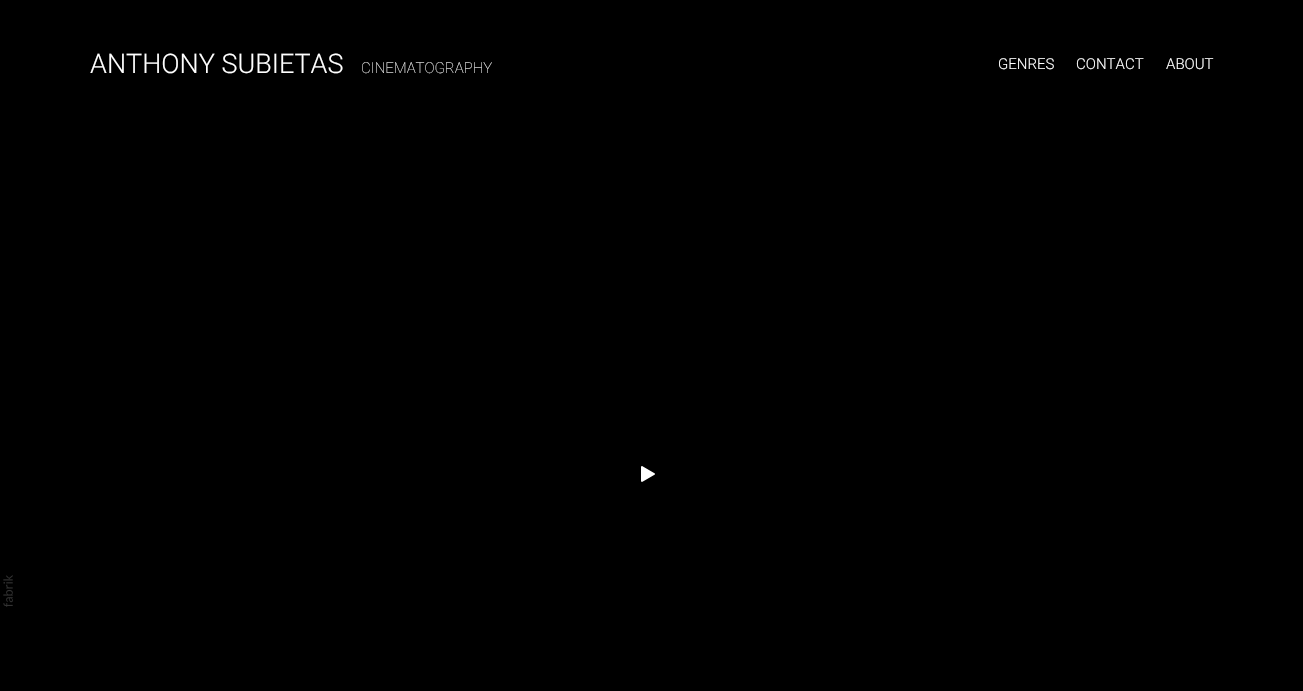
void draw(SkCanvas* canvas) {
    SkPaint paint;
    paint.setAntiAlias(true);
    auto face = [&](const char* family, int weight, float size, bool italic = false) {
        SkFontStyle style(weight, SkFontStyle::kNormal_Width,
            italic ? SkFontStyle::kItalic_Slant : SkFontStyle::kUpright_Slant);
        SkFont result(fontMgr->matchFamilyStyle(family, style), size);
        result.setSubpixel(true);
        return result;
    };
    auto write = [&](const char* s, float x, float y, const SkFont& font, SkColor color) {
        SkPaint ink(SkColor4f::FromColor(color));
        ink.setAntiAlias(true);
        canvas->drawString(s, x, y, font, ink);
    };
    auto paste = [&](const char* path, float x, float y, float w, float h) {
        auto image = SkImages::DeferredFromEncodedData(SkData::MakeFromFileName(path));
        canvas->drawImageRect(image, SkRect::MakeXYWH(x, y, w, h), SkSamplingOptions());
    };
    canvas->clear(SK_ColorBLACK);
    auto kFont1 = face("Roboto", 300, 27);
    write("ANTHONY SUBIETAS", 90, 73, kFont1, SK_ColorWHITE);
    auto kFont2 = face("Roboto", 100, 15);
    write("CINEMATOGRAPHY", 361, 73, kFont2, SK_ColorWHITE);
    auto kFont3 = face("Roboto", 300, 15);
    write("GENRES", 998, 69, kFont3, SK_ColorWHITE);
    write("CONTACT", 1076, 69, kFont3, SK_ColorWHITE);
    write("ABOUT", 1166, 69, kFont3, SK_ColorWHITE);
    paste("pic1.png", 641, 466, 14, 16);
    paste("pic2.png", 3, 575, 10, 32);
}
